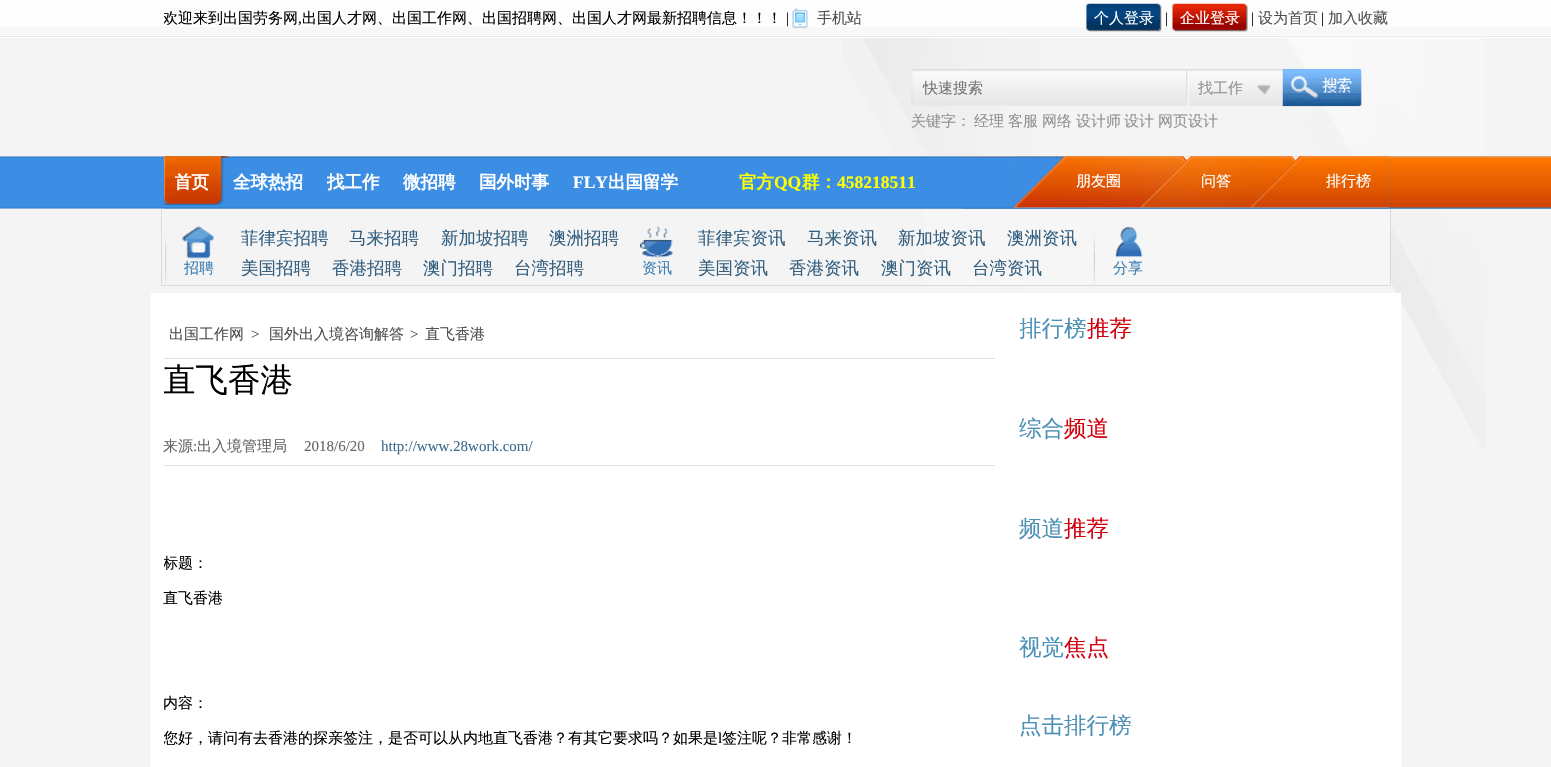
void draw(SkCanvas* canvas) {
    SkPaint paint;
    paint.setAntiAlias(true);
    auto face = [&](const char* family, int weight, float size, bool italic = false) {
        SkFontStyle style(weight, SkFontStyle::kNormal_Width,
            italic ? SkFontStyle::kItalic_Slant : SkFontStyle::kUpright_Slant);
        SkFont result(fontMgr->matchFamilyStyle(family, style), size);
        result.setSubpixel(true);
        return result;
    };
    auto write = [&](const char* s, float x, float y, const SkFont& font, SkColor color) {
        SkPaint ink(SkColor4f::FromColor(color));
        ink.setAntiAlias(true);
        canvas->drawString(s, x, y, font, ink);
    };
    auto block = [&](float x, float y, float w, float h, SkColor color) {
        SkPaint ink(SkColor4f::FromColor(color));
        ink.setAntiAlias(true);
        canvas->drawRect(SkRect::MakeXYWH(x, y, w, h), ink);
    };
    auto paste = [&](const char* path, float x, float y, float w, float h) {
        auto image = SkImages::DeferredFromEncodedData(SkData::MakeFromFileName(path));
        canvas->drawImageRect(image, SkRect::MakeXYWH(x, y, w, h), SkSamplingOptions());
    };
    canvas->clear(SkColorSetRGB(244, 244, 244));
    paste("pic1.png", 842, 38, 644, 411);
    block(0, 0, 1551, 38, SkColorSetRGB(253, 253, 253));
    block(0, 27, 1551, 8, SkColorSetRGB(248, 248, 248));
    block(0, 36, 1551, 1, SkColorSetRGB(234, 234, 234));
    block(164, 27, 1225, 8, SkColorSetRGB(253, 253, 253));
    block(164, 27, 1224, 8, SkColorSetRGB(248, 248, 248));
    canvas->save();
    canvas->clipRect(SkRect::MakeXYWH(164, 0, 699, 36));
    auto kFont1 = face("WenQuanYi Zen Hei", 500, 15);
    write("欢迎来到出国劳务网", 163, 23, kFont1, SK_ColorBLACK);
    canvas->restore();
    auto kFont2 = face("Liberation Serif", 400, 15);
    write(",", 298, 23, kFont2, SK_ColorBLACK);
    write("出国人才网、出国工作网、出国招聘网、出国人才网最新招聘信息！！！", 302, 23, kFont1, SK_ColorBLACK);
    write("|", 786, 23, kFont2, SK_ColorBLACK);
    paste("pic2.png", 792, 8, 16, 21);
    write("手机站", 817, 23, kFont1, SkColorSetRGB(80, 78, 79));
    paste("pic3.png", 1086, 3, 76, 29);
    write("个人登录", 1094, 23, kFont1, SK_ColorWHITE);
    write("|", 1165, 23, kFont2, SK_ColorBLACK);
    paste("pic4.png", 1172, 3, 76, 29);
    write("企业登录", 1180, 23, kFont1, SK_ColorWHITE);
    write("|", 1251, 23, kFont2, SK_ColorBLACK);
    write("设为首页", 1258, 23, kFont1, SkColorSetRGB(80, 78, 79));
    write("|", 1321, 23, kFont2, SK_ColorBLACK);
    write("加入收藏", 1328, 23, kFont1, SkColorSetRGB(80, 78, 79));
    paste("pic5.png", 911, 69, 276, 37);
    write("快速搜索", 923, 93, kFont1, SkColorSetRGB(117, 117, 117));
    paste("pic7.png", 1282, 68, 80, 39);
    paste("pic6.png", 1186, 69, 97, 37);
    write("找工作", 1198, 93, kFont1, SkColorSetRGB(150, 144, 144));
    write("关键字：", 911, 126, kFont1, SkColorSetRGB(150, 144, 144));
    write("经理", 974, 126, kFont1, SkColorSetRGB(150, 144, 144));
    write("客服", 1008, 126, kFont1, SkColorSetRGB(150, 144, 144));
    write("网络", 1042, 126, kFont1, SkColorSetRGB(150, 144, 144));
    write("设计师", 1076, 126, kFont1, SkColorSetRGB(150, 144, 144));
    write("设计", 1124, 126, kFont1, SkColorSetRGB(150, 144, 144));
    write("网页设计", 1158, 126, kFont1, SkColorSetRGB(150, 144, 144));
    paste("pic8.png", 0, 156, 1551, 53);
    paste("pic9.png", 962, 156, 589, 53);
    paste("pic10.png", 163, 156, 1226, 53);
    paste("pic11.png", 163, 156, 66, 49);
    auto kFont3 = face("WenQuanYi Zen Hei", 700, 17.5f);
    write("首页", 174, 188, kFont3, SK_ColorWHITE);
    paste("pic12.png", 163, 156, 12, 48);
    write("全球热招", 233, 188, kFont3, SK_ColorWHITE);
    write("找工作", 327, 188, kFont3, SK_ColorWHITE);
    write("微招聘", 403, 188, kFont3, SK_ColorWHITE);
    write("国外时事", 479, 188, kFont3, SK_ColorWHITE);
    auto kFont4 = face("Liberation Serif", 700, 17.5f);
    write("FLY", 573, 188, kFont4, SK_ColorWHITE);
    write("出国留学", 608, 188, kFont3, SK_ColorWHITE);
    write("官方", 739, 188, kFont3, SkColorSetRGB(255, 255, 0));
    write("QQ", 774, 188, kFont4, SkColorSetRGB(255, 255, 0));
    write("群：", 802, 188, kFont3, SkColorSetRGB(255, 255, 0));
    write("458218511", 837, 188, kFont4, SkColorSetRGB(255, 255, 0));
    paste("pic13.png", 1013, 156, 376, 52);
    paste("pic14.png", 1013, 156, 376, 52);
    write("朋友圈", 1076, 186, kFont1, SK_ColorWHITE);
    write("问答", 1201, 186, kFont1, SK_ColorWHITE);
    write("排行榜", 1326, 186, kFont1, SK_ColorWHITE);
    block(925, 209, 465, 76, SkColorSetRGB(246, 246, 246));
    block(1390, 209, 1, 77, SkColorSetRGB(219, 219, 219));
    block(161, 285, 1230, 1, SkColorSetRGB(219, 219, 219));
    block(161, 209, 1, 77, SkColorSetRGB(219, 219, 219));
    paste("pic15.png", 165, 233, 2, 52);
    paste("pic16.png", 182, 226, 33, 33);
    write("招聘", 184, 273, kFont1, SkColorSetRGB(61, 127, 177));
    auto kFont5 = face("WenQuanYi Zen Hei", 500, 17.5f);
    write("菲律宾招聘", 241, 244, kFont5, SkColorSetRGB(50, 94, 127));
    write("马来招聘", 349, 244, kFont5, SkColorSetRGB(50, 94, 127));
    write("新加坡招聘", 441, 244, kFont5, SkColorSetRGB(50, 94, 127));
    write("澳洲招聘", 549, 244, kFont5, SkColorSetRGB(50, 94, 127));
    write("美国招聘", 241, 274, kFont5, SkColorSetRGB(50, 94, 127));
    write("香港招聘", 332, 274, kFont5, SkColorSetRGB(50, 94, 127));
    write("澳门招聘", 423, 274, kFont5, SkColorSetRGB(50, 94, 127));
    write("台湾招聘", 514, 274, kFont5, SkColorSetRGB(50, 94, 127));
    paste("pic17.png", 640, 226, 34, 33);
    write("资讯", 642, 273, kFont1, SkColorSetRGB(61, 127, 177));
    write("菲律宾资讯", 698, 244, kFont5, SkColorSetRGB(50, 94, 127));
    write("马来资讯", 807, 244, kFont5, SkColorSetRGB(50, 94, 127));
    write("新加坡资讯", 898, 244, kFont5, SkColorSetRGB(50, 94, 127));
    write("澳洲资讯", 1007, 244, kFont5, SkColorSetRGB(50, 94, 127));
    write("美国资讯", 698, 274, kFont5, SkColorSetRGB(50, 94, 127));
    write("香港资讯", 789, 274, kFont5, SkColorSetRGB(50, 94, 127));
    write("澳门资讯", 881, 274, kFont5, SkColorSetRGB(50, 94, 127));
    write("台湾资讯", 972, 274, kFont5, SkColorSetRGB(50, 94, 127));
    paste("pic18.png", 1093, 233, 2, 52);
    paste("pic19.png", 1115, 226, 28, 33);
    write("分享", 1113, 273, kFont1, SkColorSetRGB(61, 127, 177));
    block(151, 293, 1250, 474, SK_ColorWHITE);
    block(164, 358, 831, 1, SkColorSetRGB(223, 223, 223));
    write("出国工作网", 169, 339, kFont1, SkColorSetRGB(80, 78, 79));
    write(">", 251, 339, kFont2, SkColorSetRGB(80, 78, 79));
    write("国外出入境咨询解答", 269, 339, kFont1, SkColorSetRGB(80, 78, 79));
    write(">", 410, 339, kFont2, SkColorSetRGB(80, 78, 79));
    write("直飞香港", 425, 339, kFont1, SkColorSetRGB(80, 78, 79));
    canvas->save();
    canvas->clipRect(SkRect::MakeXYWH(164, 359, 831, 69));
    auto kFont6 = face("WenQuanYi Zen Hei", 500, 32.5f);
    write("直飞香港", 163, 391, kFont6, SK_ColorBLACK);
    canvas->restore();
    block(164, 465, 831, 1, SkColorSetRGB(225, 225, 225));
    write("来源", 163, 451, kFont1, SkColorSetRGB(102, 102, 102));
    write(":", 193, 451, kFont2, SkColorSetRGB(102, 102, 102));
    write("出入境管理局", 197, 451, kFont1, SkColorSetRGB(102, 102, 102));
    write("2018/6/20", 304, 451, kFont2, SkColorSetRGB(102, 102, 102));
    write("http://www.28work.com/", 381, 451, kFont2, SkColorSetRGB(61, 107, 141));
    canvas->save();
    canvas->clipRect(SkRect::MakeXYWH(164, 510, 812, 105));
    write("标题：", 163, 568, kFont1, SK_ColorBLACK);
    canvas->restore();
    write("直飞香港", 163, 603, kFont1, SK_ColorBLACK);
    write("内容：", 163, 708, kFont1, SK_ColorBLACK);
    canvas->save();
    canvas->clipRect(SkRect::MakeXYWH(164, 650, 812, 105));
    write("您好，请问有去香港的探亲签注，是否可以从内地直飞香港？有其它要求吗？如果是", 163, 743, kFont1, SK_ColorBLACK);
    canvas->restore();
    write("l", 718, 743, kFont2, SK_ColorBLACK);
    write("签注呢？非常感谢！", 722, 743, kFont1, SK_ColorBLACK);
    canvas->save();
    canvas->clipRect(SkRect::MakeXYWH(1020, 308, 381, 62));
    auto kFont7 = face("WenQuanYi Zen Hei", 500, 22.5f);
    write("排行榜", 1019, 336, kFont7, SkColorSetRGB(76, 144, 181));
    canvas->restore();
    write("推荐", 1087, 336, kFont7, SkColorSetRGB(209, 0, 14));
    write("综合", 1019, 436, kFont7, SkColorSetRGB(76, 144, 181));
    write("频道", 1064, 436, kFont7, SkColorSetRGB(209, 0, 14));
    write("频道", 1019, 536, kFont7, SkColorSetRGB(76, 144, 181));
    write("推荐", 1064, 536, kFont7, SkColorSetRGB(209, 0, 14));
    write("视觉", 1019, 655, kFont7, SkColorSetRGB(76, 144, 181));
    write("焦点", 1064, 655, kFont7, SkColorSetRGB(209, 0, 14));
    write("点击排行榜", 1019, 733, kFont7, SkColorSetRGB(76, 144, 181));
}
